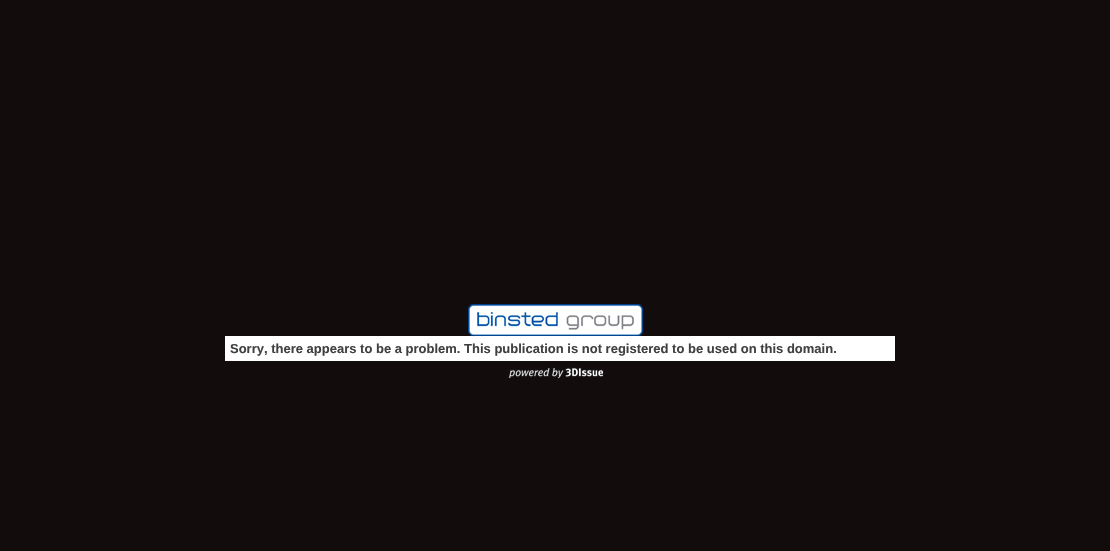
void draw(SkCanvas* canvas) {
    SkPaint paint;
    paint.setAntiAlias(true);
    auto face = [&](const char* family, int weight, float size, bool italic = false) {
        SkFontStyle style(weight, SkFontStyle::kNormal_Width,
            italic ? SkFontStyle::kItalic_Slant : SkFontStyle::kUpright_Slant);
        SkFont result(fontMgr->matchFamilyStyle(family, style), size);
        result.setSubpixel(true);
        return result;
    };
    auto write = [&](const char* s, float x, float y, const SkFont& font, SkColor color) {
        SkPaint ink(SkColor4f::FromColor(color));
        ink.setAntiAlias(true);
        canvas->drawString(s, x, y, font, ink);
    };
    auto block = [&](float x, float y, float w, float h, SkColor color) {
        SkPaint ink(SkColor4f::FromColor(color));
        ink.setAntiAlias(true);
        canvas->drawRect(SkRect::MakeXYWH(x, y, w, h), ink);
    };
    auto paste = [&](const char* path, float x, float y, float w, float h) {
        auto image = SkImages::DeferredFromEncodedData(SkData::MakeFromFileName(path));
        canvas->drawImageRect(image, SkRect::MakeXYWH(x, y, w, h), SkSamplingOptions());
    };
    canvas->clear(SkColorSetRGB(19, 12, 13));
    paste("pic1.png", 468, 304, 175, 32);
    block(225, 336, 670, 25, SK_ColorWHITE);
    auto kFont1 = face("Liberation Sans", 700, 13);
    write("Sorry, there appears to be a problem. This publication is not registered to be used on this domain.", 230, 353, kFont1, SkColorSetRGB(64, 64, 64));
    paste("pic2.png", 508, 367, 96, 12);
}
